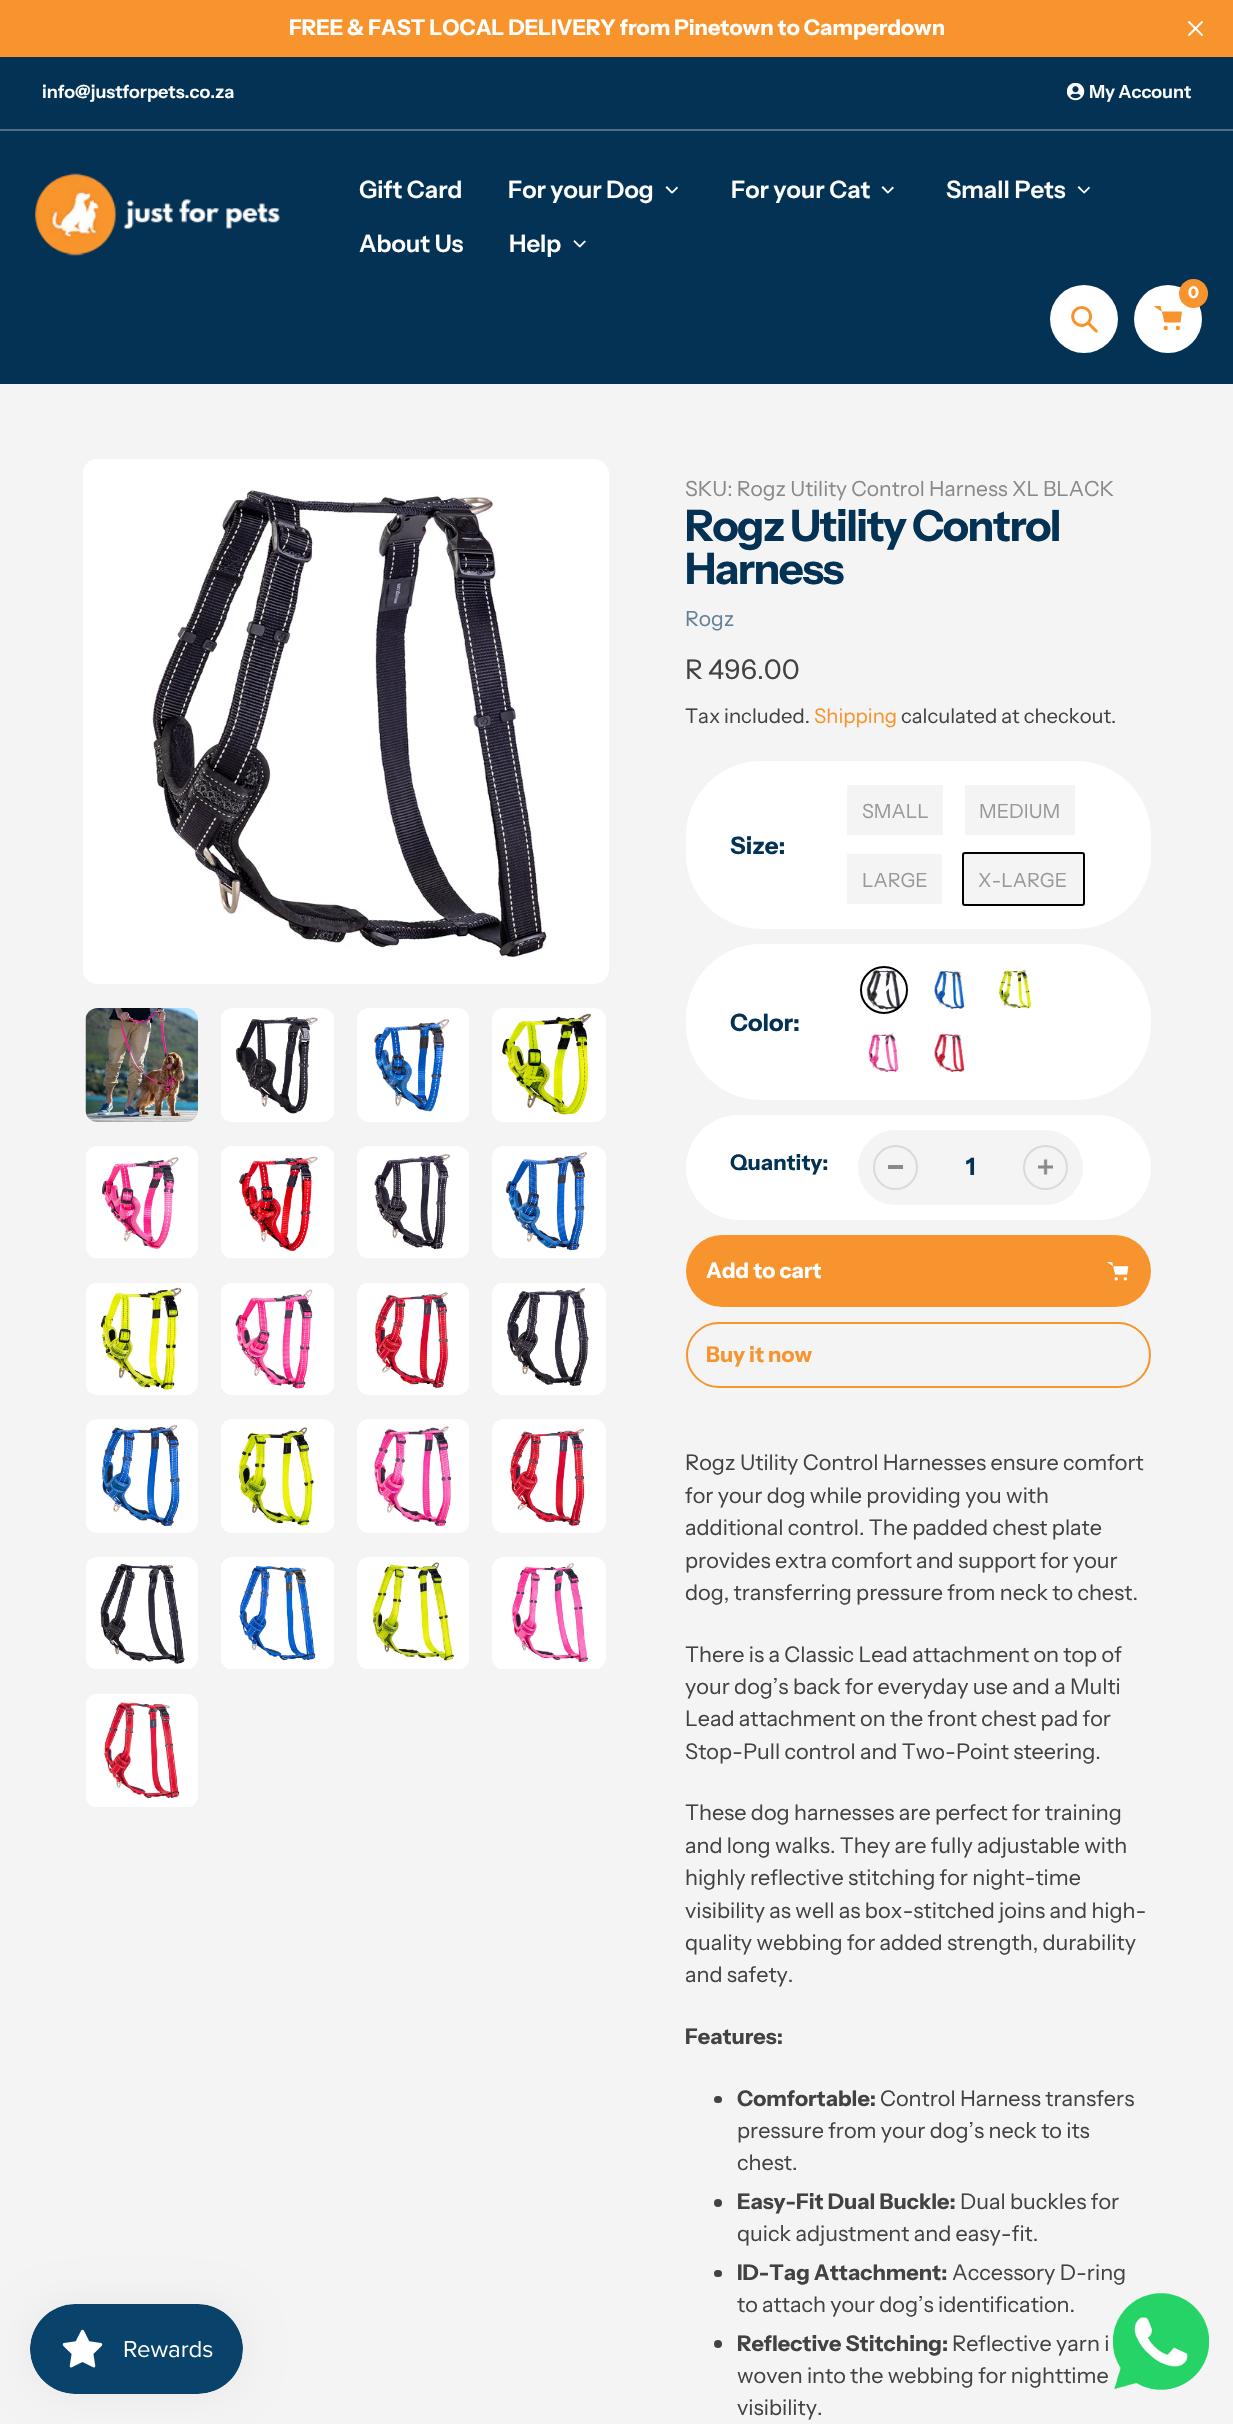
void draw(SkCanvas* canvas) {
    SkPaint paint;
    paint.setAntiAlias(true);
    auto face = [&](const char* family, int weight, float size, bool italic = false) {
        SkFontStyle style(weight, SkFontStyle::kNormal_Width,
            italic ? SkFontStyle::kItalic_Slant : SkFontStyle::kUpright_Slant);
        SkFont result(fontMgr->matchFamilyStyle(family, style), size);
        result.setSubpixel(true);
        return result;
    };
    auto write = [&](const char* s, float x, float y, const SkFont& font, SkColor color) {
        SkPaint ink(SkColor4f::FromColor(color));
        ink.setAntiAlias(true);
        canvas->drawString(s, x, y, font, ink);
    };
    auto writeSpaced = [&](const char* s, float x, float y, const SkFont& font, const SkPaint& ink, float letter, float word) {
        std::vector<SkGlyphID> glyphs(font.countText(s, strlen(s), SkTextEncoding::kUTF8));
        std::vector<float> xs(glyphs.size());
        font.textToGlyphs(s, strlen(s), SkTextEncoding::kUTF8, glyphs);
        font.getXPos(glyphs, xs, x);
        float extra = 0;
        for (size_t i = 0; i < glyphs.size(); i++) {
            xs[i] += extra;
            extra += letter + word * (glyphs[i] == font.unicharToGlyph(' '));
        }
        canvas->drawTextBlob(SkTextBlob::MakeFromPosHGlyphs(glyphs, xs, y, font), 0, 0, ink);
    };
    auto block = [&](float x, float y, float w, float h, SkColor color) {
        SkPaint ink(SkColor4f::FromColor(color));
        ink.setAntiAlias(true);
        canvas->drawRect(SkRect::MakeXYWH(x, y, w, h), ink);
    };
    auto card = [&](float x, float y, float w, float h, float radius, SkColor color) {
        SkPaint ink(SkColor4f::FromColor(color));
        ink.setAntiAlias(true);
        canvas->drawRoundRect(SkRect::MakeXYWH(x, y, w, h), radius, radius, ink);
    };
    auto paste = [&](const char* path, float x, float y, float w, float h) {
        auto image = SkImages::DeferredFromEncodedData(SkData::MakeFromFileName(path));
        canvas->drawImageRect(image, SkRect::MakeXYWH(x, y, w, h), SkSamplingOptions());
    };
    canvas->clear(SkColorSetRGB(244, 244, 244));
    block(0, 0, 1233, 57, SkColorSetRGB(247, 148, 46));
    auto kFont1 = face("Instrument Sans", 700, 21.6f);
    write("FREE & FAST LOCAL DELIVERY from Pinetown to Camperdown", 289, 35, kFont1, SK_ColorWHITE);
    paste("pic1.png", 1188, 21, 15, 15);
    block(0, 57, 1233, 327, SkColorSetRGB(4, 50, 84));
    block(0, 129, 1233, 2, SkColorSetRGB(79, 112, 135));
    auto kFont2 = face("Instrument Sans", 600, 18);
    write("info@justforpets.co.za", 42, 98, kFont2, SK_ColorWHITE);
    paste("pic2.png", 1067, 83, 18, 18);
    write("My Account", 1089, 98, kFont2, SK_ColorWHITE);
    paste("pic3.png", 35, 173, 246, 83);
    auto kFont3 = face("Instrument Sans", 600, 24);
    write("Gift Card", 359, 198, kFont3, SK_ColorWHITE);
    write("For your Dog", 508, 198, kFont3, SK_ColorWHITE);
    paint.setColor(SK_ColorWHITE);
    canvas->drawPath(SkPathBuilder().moveTo(677, 186.5f).lineTo(678, 188).lineTo(672.5f, 193.5f).lineTo(671, 192.5f).close().detach(), paint);
    canvas->drawPath(SkPathBuilder().moveTo(667, 186).lineTo(673, 192.5f).lineTo(671.5f, 193.5f).lineTo(665.5f, 187.5f).close().detach(), paint);
    write("For your Cat", 731, 198, kFont3, SK_ColorWHITE);
    canvas->drawPath(SkPathBuilder().moveTo(892.5f, 186.5f).lineTo(894, 188).lineTo(888, 193.5f).lineTo(887, 192.5f).close().detach(), paint);
    canvas->drawPath(SkPathBuilder().moveTo(883, 186).lineTo(889, 192.5f).lineTo(887.5f, 193.5f).lineTo(881.5f, 187.5f).close().detach(), paint);
    write("Small Pets", 946, 198, kFont3, SK_ColorWHITE);
    canvas->drawPath(SkPathBuilder().moveTo(1089, 186.5f).lineTo(1090, 188).lineTo(1084.5f, 193.5f).lineTo(1083, 192.5f).close().detach(), paint);
    canvas->drawPath(SkPathBuilder().moveTo(1079, 186).lineTo(1085, 192.5f).lineTo(1084, 193.5f).lineTo(1077.5f, 187.5f).close().detach(), paint);
    write("About Us", 359, 252, kFont3, SK_ColorWHITE);
    write("Help", 509, 252, kFont3, SK_ColorWHITE);
    canvas->drawPath(SkPathBuilder().moveTo(584.5f, 240.5f).lineTo(586, 241.5f).lineTo(580, 247.5f).lineTo(579, 246).close().detach(), paint);
    canvas->drawPath(SkPathBuilder().moveTo(574.5f, 240).lineTo(580.5f, 246).lineTo(579.5f, 247.5f).lineTo(573.5f, 241.5f).close().detach(), paint);
    canvas->drawCircle(1084, 319, 34, paint);
    paste("pic4.png", 1071, 306, 27, 27);
    canvas->drawCircle(1168, 319, 34, paint);
    paint.setColor(SkColorSetRGB(247, 148, 46));
    canvas->drawPath(SkPathBuilder(SkPathFillType::kEvenOdd).moveTo(1161.5f, 311.5f).lineTo(1182, 311.5f).lineTo(1180.5f, 322.5f).lineTo(1164.5f, 322.5f).lineTo(1160.5f, 306).lineTo(1153.5f, 306).detach(), paint);
    canvas->drawCircle(1193.5f, 293.5f, 14.5f, paint);
    auto kFont4 = face("Instrument Sans", 700, 16);
    write("0", 1188, 298, kFont4, SK_ColorWHITE);
    canvas->drawCircle(1165.7f, 328, 2.2f, paint);
    canvas->drawCircle(1177.9f, 328, 2.2f, paint);
    paint.setColor(SkColorSetARGB(13, 0, 0, 0));
    paint.setMaskFilter(SkMaskFilter::MakeBlur(kNormal_SkBlurStyle, 19));
    canvas->drawRoundRect(SkRect::MakeXYWH(30, 2304, 213, 90), 45, 45, paint);
    paint.setMaskFilter(nullptr);
    paste("pic5.png", 30, 2304, 213, 90);
    paste("pic6.png", 83, 459, 526, 525);
    paste("pic7.png", 85, 1008, 113, 114);
    paste("pic8.png", 221, 1008, 113, 114);
    paste("pic9.png", 357, 1008, 112, 114);
    paste("pic10.png", 492, 1008, 114, 114);
    paste("pic11.png", 86, 1146, 112, 112);
    paste("pic12.png", 221, 1146, 113, 112);
    paste("pic13.png", 357, 1146, 112, 112);
    paste("pic14.png", 492, 1146, 114, 112);
    paste("pic15.png", 86, 1283, 112, 112);
    paste("pic16.png", 221, 1283, 113, 112);
    paste("pic17.png", 357, 1283, 112, 112);
    paste("pic18.png", 492, 1283, 114, 112);
    paste("pic19.png", 86, 1419, 112, 114);
    paste("pic20.png", 221, 1419, 113, 114);
    paste("pic21.png", 357, 1419, 112, 114);
    paste("pic22.png", 492, 1419, 114, 114);
    paste("pic23.png", 86, 1557, 112, 112);
    paste("pic24.png", 221, 1557, 113, 112);
    paste("pic25.png", 357, 1557, 112, 112);
    paste("pic26.png", 492, 1557, 114, 112);
    paste("pic27.png", 86, 1694, 112, 113);
    auto kFont5 = face("Instrument Sans", 400, 21);
    write("SKU: Rogz Utility Control Harness XL BLACK", 685, 496, kFont5, SkColorSetRGB(137, 137, 137));
    auto kFont6 = face("Instrument Sans", 700, 43.25f);
    paint.setColor(SkColorSetRGB(4, 50, 84));
    writeSpaced("Rogz Utility Control", 685, 541, kFont6, paint, -1.5f, 0);
    writeSpaced("Harness", 685, 584, kFont6, paint, -1.5f, 0);
    write("Rogz", 685, 626, kFont5, SkColorSetRGB(100, 128, 148));
    auto kFont7 = face("Instrument Sans", 400, 27);
    write("R 496.00", 685, 679, kFont7, SkColorSetRGB(66, 66, 66));
    auto kFont8 = face("Instrument Sans", 400, 20.25f);
    write("Tax included.", 685, 723, kFont8, SkColorSetRGB(66, 66, 66));
    write("Shipping", 814, 723, kFont8, SkColorSetRGB(247, 148, 46));
    write("calculated at checkout.", 901, 723, kFont8, SkColorSetRGB(66, 66, 66));
    card(686, 761, 465, 168, 75, SK_ColorWHITE);
    auto kFont9 = face("Instrument Sans", 700, 24);
    write("Size:", 730, 854, kFont9, SkColorSetRGB(4, 50, 84));
    paint.setColor(SkColorSetRGB(244, 244, 244));
    canvas->drawRoundRect(SkRect::MakeXYWH(846, 784, 98, 52), 2, 2, paint);
    paint.setStyle(SkPaint::kStroke_Style);
    paint.setStrokeWidth(2);
    paint.setColor(SK_ColorWHITE);
    canvas->drawRoundRect(SkRect::MakeXYWH(846, 784, 98, 52), 2, 2, paint);
    auto kFont10 = face("Instrument Sans", 400, 19.5f);
    write("SMALL", 862, 818, kFont10, SkColorSetRGB(153, 153, 153));
    paint.setStyle(SkPaint::kFill_Style);
    paint.setColor(SkColorSetRGB(244, 244, 244));
    canvas->drawRoundRect(SkRect::MakeXYWH(964, 784, 112, 52), 2, 2, paint);
    paint.setStyle(SkPaint::kStroke_Style);
    paint.setColor(SK_ColorWHITE);
    canvas->drawRoundRect(SkRect::MakeXYWH(964, 784, 112, 52), 2, 2, paint);
    write("MEDIUM", 979, 818, kFont10, SkColorSetRGB(153, 153, 153));
    paint.setStyle(SkPaint::kFill_Style);
    paint.setColor(SkColorSetRGB(244, 244, 244));
    canvas->drawRoundRect(SkRect::MakeXYWH(846, 853, 97, 52), 2, 2, paint);
    paint.setStyle(SkPaint::kStroke_Style);
    paint.setColor(SK_ColorWHITE);
    canvas->drawRoundRect(SkRect::MakeXYWH(846, 853, 97, 52), 2, 2, paint);
    write("LARGE", 862, 887, kFont10, SkColorSetRGB(153, 153, 153));
    paint.setStyle(SkPaint::kFill_Style);
    paint.setColor(SkColorSetRGB(244, 244, 244));
    canvas->drawRoundRect(SkRect::MakeXYWH(963, 853, 121, 52), 2, 2, paint);
    paint.setStyle(SkPaint::kStroke_Style);
    paint.setColor(SK_ColorBLACK);
    canvas->drawRoundRect(SkRect::MakeXYWH(963, 853, 121, 52), 2, 2, paint);
    write("X-LARGE", 978, 887, kFont10, SkColorSetRGB(153, 153, 153));
    card(686, 944, 465, 156, 75, SK_ColorWHITE);
    write("Color:", 730, 1031, kFont9, SkColorSetRGB(4, 50, 84));
    paste("pic28.png", 866, 970, 35, 40);
    canvas->drawCircle(884, 990, 23, paint);
    paste("pic29.png", 875, 983, 14, 10);
    paste("pic30.png", 934, 970, 33, 41);
    paint.setColor(SK_ColorWHITE);
    canvas->drawCircle(950, 990, 23, paint);
    paste("pic31.png", 997, 969, 35, 42);
    canvas->drawCircle(1016, 990, 23, paint);
    paste("pic32.png", 868, 1032, 32, 41);
    canvas->drawCircle(884, 1053, 23, paint);
    paste("pic33.png", 934, 1033, 31, 40);
    canvas->drawCircle(950, 1053, 23, paint);
    card(686, 1115, 465, 105, 52.5f, SK_ColorWHITE);
    write("Quantity:", 730, 1170, kFont1, SkColorSetRGB(4, 50, 84));
    card(858, 1130, 225, 75, 37.5f, SkColorSetRGB(244, 244, 244));
    block(888, 1165, 15, 4, SkColorSetRGB(137, 137, 137));
    paint.setColor(SkColorSetRGB(215, 219, 219));
    canvas->drawCircle(895.5f, 1167.5f, 21.5f, paint);
    write("1", 966, 1175, kFont9, SkColorSetRGB(4, 50, 84));
    paste("pic34.png", 1038, 1159, 15, 16);
    canvas->drawCircle(1045.5f, 1167.5f, 21.5f, paint);
    card(686, 1235, 465, 72, 36, SkColorSetRGB(247, 148, 46));
    write("Add to cart", 706, 1278, kFont1, SK_ColorWHITE);
    paste("pic35.png", 1107, 1262, 22, 19);
    paint.setColor(SkColorSetRGB(247, 148, 46));
    canvas->drawRoundRect(SkRect::MakeXYWH(687, 1323, 463, 64), 32, 32, paint);
    write("Buy it now", 706, 1362, kFont1, SkColorSetRGB(247, 148, 46));
    auto kFont11 = face("Instrument Sans", 400, 21.6f);
    write("Rogz Utility Control Harnesses ensure comfort", 685, 1470, kFont11, SkColorSetRGB(66, 66, 66));
    write("for your dog while providing you with", 685, 1503, kFont11, SkColorSetRGB(66, 66, 66));
    write("additional control. The padded chest plate", 685, 1535, kFont11, SkColorSetRGB(66, 66, 66));
    write("provides extra comfort and support for your", 685, 1568, kFont11, SkColorSetRGB(66, 66, 66));
    write("dog, transferring pressure from neck to chest.", 685, 1600, kFont11, SkColorSetRGB(66, 66, 66));
    write("There is a Classic Lead attachment on top of", 685, 1662, kFont11, SkColorSetRGB(66, 66, 66));
    write("your dog’s back for everyday use and a Multi", 685, 1694, kFont11, SkColorSetRGB(66, 66, 66));
    write("Lead attachment on the front chest pad for", 685, 1726, kFont11, SkColorSetRGB(66, 66, 66));
    write("Stop-Pull control and Two-Point steering.", 685, 1759, kFont11, SkColorSetRGB(66, 66, 66));
    write("These dog harnesses are perfect for training", 685, 1820, kFont11, SkColorSetRGB(66, 66, 66));
    write("and long walks. They are fully adjustable with", 685, 1853, kFont11, SkColorSetRGB(66, 66, 66));
    write("highly reflective stitching for night-time", 685, 1885, kFont11, SkColorSetRGB(66, 66, 66));
    write("visibility as well as box-stitched joins and high-", 685, 1918, kFont11, SkColorSetRGB(66, 66, 66));
    write("quality webbing for added strength, durability", 685, 1950, kFont11, SkColorSetRGB(66, 66, 66));
    write("and safety.", 685, 1982, kFont11, SkColorSetRGB(66, 66, 66));
    write("Features:", 685, 2044, kFont1, SkColorSetRGB(66, 66, 66));
    card(714, 2096, 8, 7, 3.5f, SkColorSetRGB(66, 66, 66));
    write("Comfortable:", 737, 2106, kFont1, SkColorSetRGB(66, 66, 66));
    write("Control Harness transfers", 880, 2106, kFont11, SkColorSetRGB(66, 66, 66));
    write("pressure from your dog’s neck to its", 737, 2138, kFont11, SkColorSetRGB(66, 66, 66));
    write("chest.", 737, 2170, kFont11, SkColorSetRGB(66, 66, 66));
    paint.setStyle(SkPaint::kFill_Style);
    paint.setColor(SkColorSetRGB(66, 66, 66));
    canvas->drawCircle(718, 2203, 4, paint);
    write("Easy-Fit Dual Buckle:", 737, 2209, kFont1, SkColorSetRGB(66, 66, 66));
    write("Dual buckles for", 960, 2209, kFont11, SkColorSetRGB(66, 66, 66));
    write("quick adjustment and easy-fit.", 737, 2241, kFont11, SkColorSetRGB(66, 66, 66));
    card(714, 2270, 8, 7, 3.5f, SkColorSetRGB(66, 66, 66));
    write("ID-Tag Attachment:", 737, 2280, kFont1, SkColorSetRGB(66, 66, 66));
    write("Accessory D-ring", 952, 2280, kFont11, SkColorSetRGB(66, 66, 66));
    write("to attach your dog’s identification.", 737, 2312, kFont11, SkColorSetRGB(66, 66, 66));
    canvas->drawCircle(718, 2344, 4, paint);
    write("Reflective Stitching:", 737, 2351, kFont1, SkColorSetRGB(66, 66, 66));
    write("Reflective yarn i", 952, 2351, kFont11, SkColorSetRGB(66, 66, 66));
    write("woven into the webbing for nighttime", 737, 2383, kFont11, SkColorSetRGB(66, 66, 66));
    write("visibility.", 737, 2415, kFont11, SkColorSetRGB(66, 66, 66));
    paste("pic36.png", 1113, 2293, 96, 97);
    paste("pic37.png", 1113, 2293, 96, 97);
}
